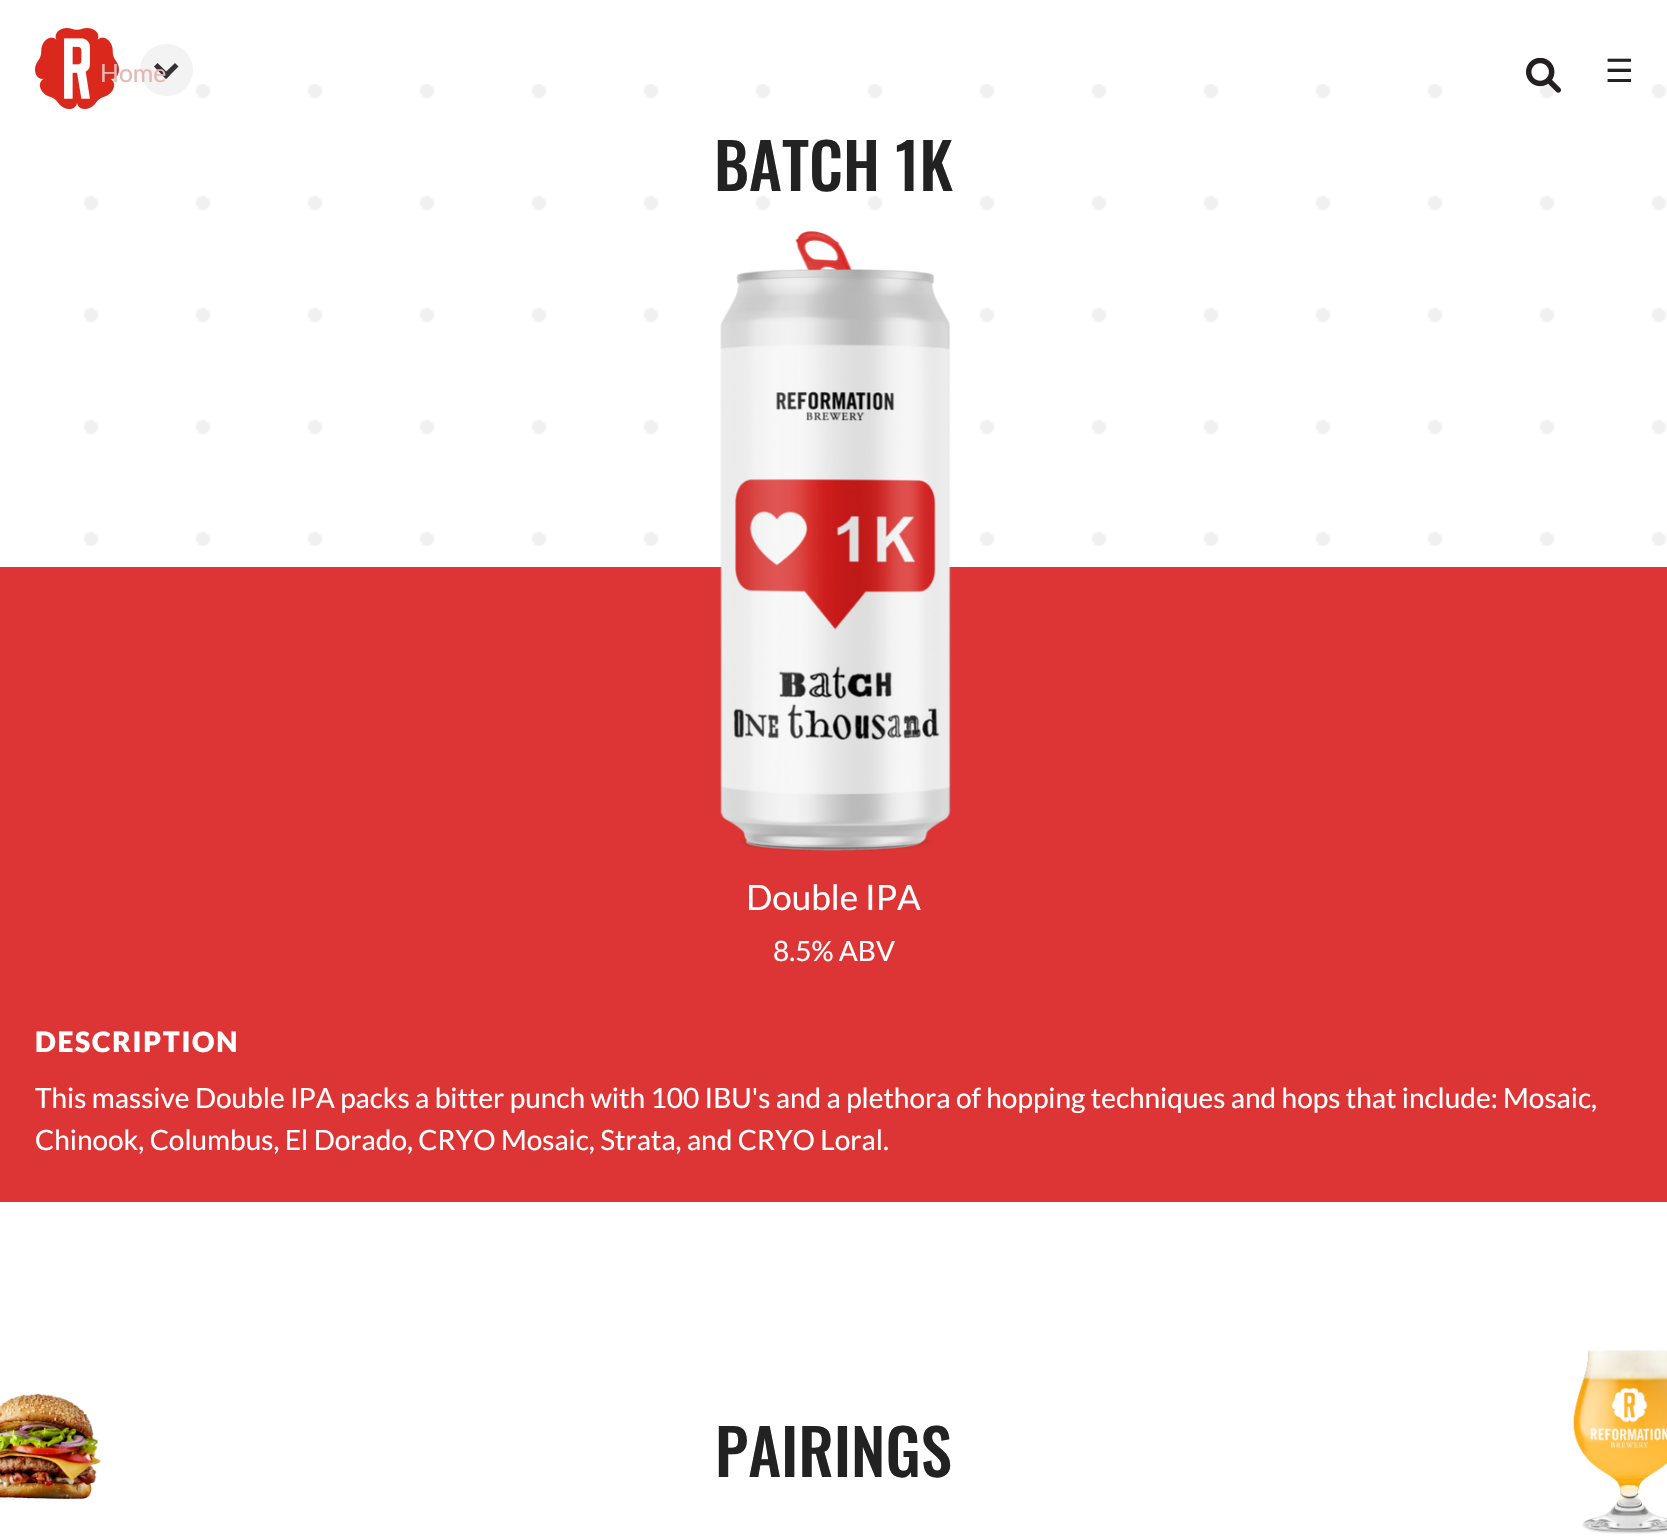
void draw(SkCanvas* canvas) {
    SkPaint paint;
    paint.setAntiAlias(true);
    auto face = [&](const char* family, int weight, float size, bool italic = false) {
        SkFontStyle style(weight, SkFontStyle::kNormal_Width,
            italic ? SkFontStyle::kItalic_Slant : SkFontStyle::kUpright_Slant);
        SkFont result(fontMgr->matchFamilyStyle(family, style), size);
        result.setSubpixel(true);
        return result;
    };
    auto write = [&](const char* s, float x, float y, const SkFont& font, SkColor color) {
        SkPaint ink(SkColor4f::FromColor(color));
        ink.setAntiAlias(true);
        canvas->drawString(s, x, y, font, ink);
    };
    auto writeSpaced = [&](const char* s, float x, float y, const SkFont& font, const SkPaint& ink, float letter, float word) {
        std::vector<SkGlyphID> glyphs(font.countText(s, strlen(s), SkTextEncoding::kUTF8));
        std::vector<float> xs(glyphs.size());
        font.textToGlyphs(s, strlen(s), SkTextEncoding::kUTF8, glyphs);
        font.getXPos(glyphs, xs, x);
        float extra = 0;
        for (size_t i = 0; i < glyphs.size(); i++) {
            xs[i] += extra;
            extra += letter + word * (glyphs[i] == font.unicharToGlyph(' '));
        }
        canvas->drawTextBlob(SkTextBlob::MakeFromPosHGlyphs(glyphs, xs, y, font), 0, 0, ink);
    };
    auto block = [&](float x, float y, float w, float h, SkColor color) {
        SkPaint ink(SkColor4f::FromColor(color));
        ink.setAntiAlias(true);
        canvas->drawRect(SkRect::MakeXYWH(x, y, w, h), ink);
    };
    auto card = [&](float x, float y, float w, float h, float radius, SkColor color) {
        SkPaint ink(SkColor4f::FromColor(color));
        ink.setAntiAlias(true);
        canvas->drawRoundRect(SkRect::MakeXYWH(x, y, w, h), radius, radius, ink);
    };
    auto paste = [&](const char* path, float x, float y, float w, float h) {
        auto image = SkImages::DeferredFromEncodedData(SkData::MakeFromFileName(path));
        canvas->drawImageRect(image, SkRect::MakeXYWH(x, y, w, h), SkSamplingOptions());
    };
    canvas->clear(SK_ColorWHITE);
    paste("pic3.png", 84, 84, 1582, 462);
    paste("pic1.png", 35, 28, 84, 81);
    card(140, 44, 53, 52, 26, SkColorSetRGB(243, 243, 243));
    paint.setColor(SkColorSetRGB(51, 51, 51));
    canvas->drawPath(SkPathBuilder().moveTo(178.5f, 66.5f).lineTo(166, 79).lineTo(162.5f, 75).lineTo(175, 63).close().detach(), paint);
    canvas->drawPath(SkPathBuilder().moveTo(170, 75).lineTo(166, 79).lineTo(154, 66.5f).lineTo(157.5f, 63).close().detach(), paint);
    auto kFont1 = face("Lato", 400, 25);
    write("Home", 100, 82, kFont1, SkColorSetRGB(227, 183, 180));
    paste("pic2.png", 1526, 58, 35, 35);
    auto kFont2 = face("DejaVu Sans", 400, 32);
    write("☰", 1605, 82, kFont2, SkColorSetRGB(34, 34, 34));
    auto kFont3 = face("Oswald", 500, 63);
    write("BATCH 1K", 714, 191, kFont3, SkColorSetRGB(34, 34, 34));
    block(0, 567, 1667, 635, SkColorSetRGB(221, 53, 53));
    paste("pic4.png", 720, 231, 231, 620);
    auto kFont4 = face("Lato", 400, 35);
    write("Double IPA", 746, 910, kFont4, SK_ColorWHITE);
    auto kFont5 = face("Lato", 400, 28);
    write("8.5% ABV", 773, 961, kFont5, SK_ColorWHITE);
    auto kFont6 = face("Lato", 900, 28);
    paint.setColor(SK_ColorWHITE);
    writeSpaced("DESCRIPTION", 35, 1052, kFont6, paint, 1.75f, 0);
    write("This massive Double IPA packs a bitter punch with 100 IBU's and a plethora of hopping techniques and hops that include: Mosaic,", 35, 1108, kFont5, SK_ColorWHITE);
    write("Chinook, Columbus, El Dorado, CRYO Mosaic, Strata, and CRYO Loral.", 35, 1150, kFont5, SK_ColorWHITE);
    paste("pic5.png", 0, 1393, 101, 107);
    write("PAIRINGS", 715, 1477, kFont3, SkColorSetRGB(34, 34, 34));
    paste("pic6.png", 1573, 1350, 94, 184);
}
